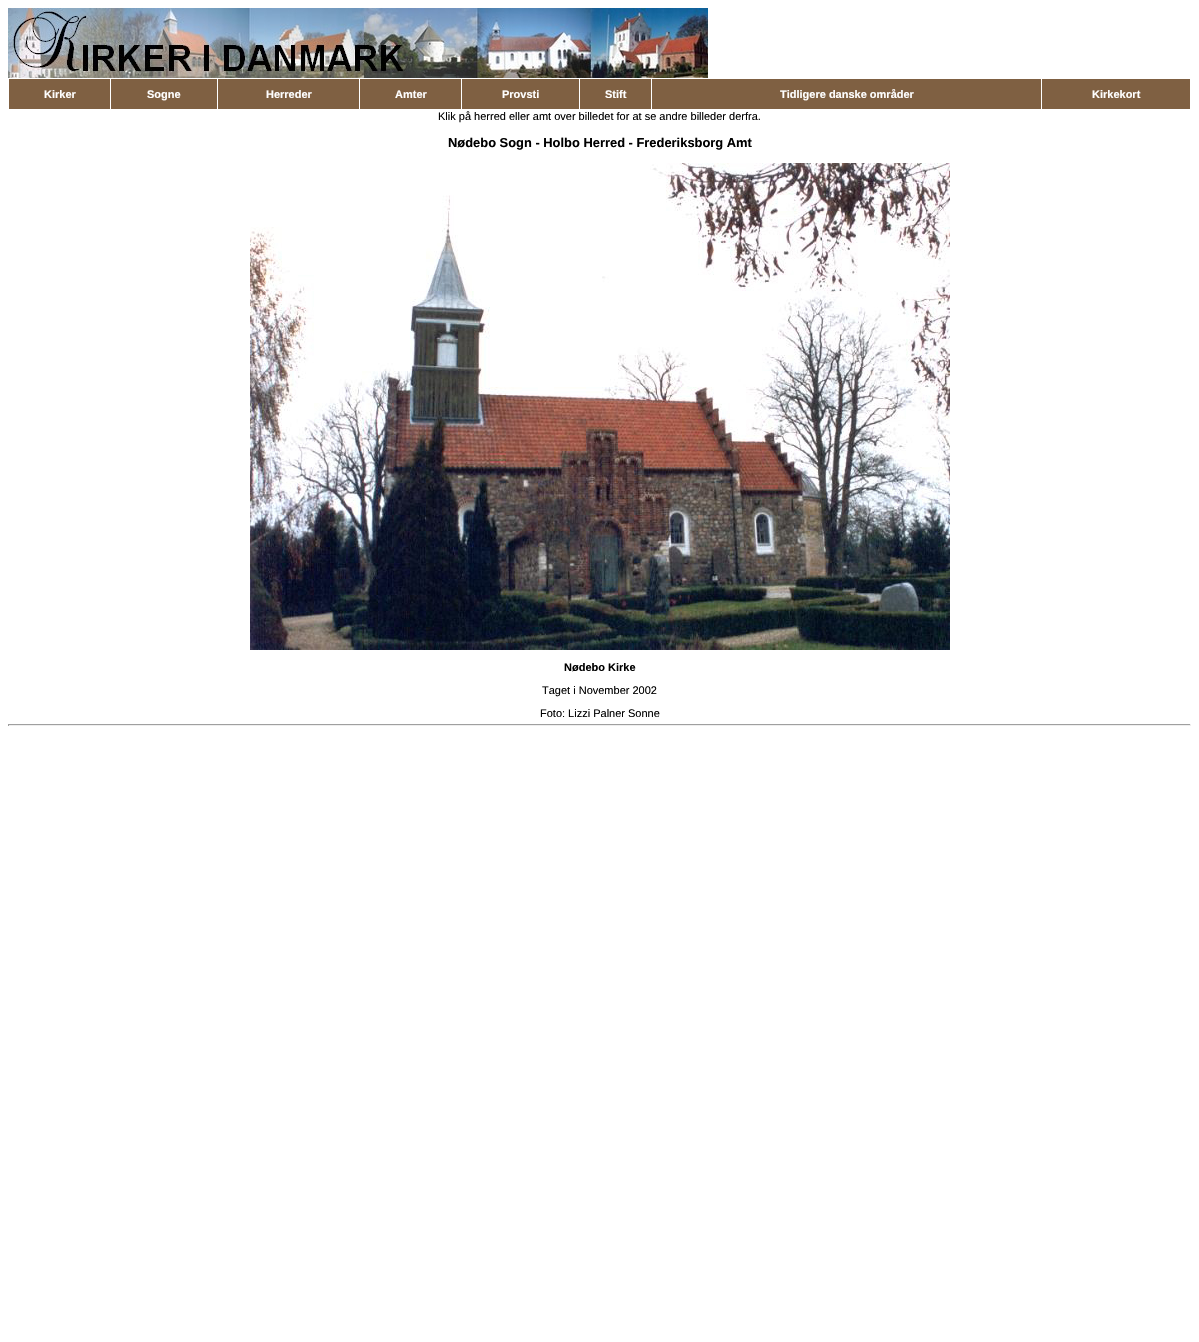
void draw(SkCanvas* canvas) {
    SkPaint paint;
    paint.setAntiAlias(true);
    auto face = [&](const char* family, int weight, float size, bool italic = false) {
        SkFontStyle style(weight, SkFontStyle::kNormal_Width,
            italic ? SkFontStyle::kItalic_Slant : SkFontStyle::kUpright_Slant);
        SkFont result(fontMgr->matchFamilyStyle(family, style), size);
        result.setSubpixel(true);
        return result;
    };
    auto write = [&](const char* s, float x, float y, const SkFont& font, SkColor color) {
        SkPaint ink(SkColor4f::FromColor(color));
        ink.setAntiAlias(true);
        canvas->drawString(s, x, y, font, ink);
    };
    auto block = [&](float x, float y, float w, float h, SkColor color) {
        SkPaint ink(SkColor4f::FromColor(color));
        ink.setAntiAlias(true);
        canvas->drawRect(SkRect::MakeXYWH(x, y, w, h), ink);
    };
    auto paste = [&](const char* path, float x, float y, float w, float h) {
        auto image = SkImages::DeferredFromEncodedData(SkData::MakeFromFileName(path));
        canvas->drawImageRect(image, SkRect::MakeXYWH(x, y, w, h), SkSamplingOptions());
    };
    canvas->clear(SK_ColorWHITE);
    paste("pic1.png", 8, 8, 700, 70);
    block(9, 79, 101, 30, SkColorSetRGB(127, 96, 66));
    auto kFont1 = face("Liberation Sans", 700, 11);
    write("Kirker", 44, 98, kFont1, SK_ColorWHITE);
    block(111, 79, 106, 30, SkColorSetRGB(127, 96, 66));
    write("Sogne", 147, 98, kFont1, SK_ColorWHITE);
    block(218, 79, 141, 30, SkColorSetRGB(127, 96, 66));
    write("Herreder", 266, 98, kFont1, SK_ColorWHITE);
    block(360, 79, 101, 30, SkColorSetRGB(127, 96, 66));
    write("Amter", 395, 98, kFont1, SK_ColorWHITE);
    block(462, 79, 117, 30, SkColorSetRGB(127, 96, 66));
    write("Provsti", 502, 98, kFont1, SK_ColorWHITE);
    block(580, 79, 71, 30, SkColorSetRGB(127, 96, 66));
    write("Stift", 605, 98, kFont1, SK_ColorWHITE);
    block(652, 79, 389, 30, SkColorSetRGB(127, 96, 66));
    write("Tidligere danske områder", 780, 98, kFont1, SK_ColorWHITE);
    block(1042, 79, 148, 30, SkColorSetRGB(127, 96, 66));
    write("Kirkekort", 1092, 98, kFont1, SK_ColorWHITE);
    auto kFont2 = face("Liberation Sans", 400, 11);
    write("Klik på herred eller amt over billedet for at se andre billeder derfra.", 438, 120, kFont2, SK_ColorBLACK);
    auto kFont3 = face("Liberation Sans", 700, 12.9f);
    write("Nødebo Sogn - Holbo Herred - Frederiksborg Amt", 448, 147, kFont3, SK_ColorBLACK);
    paste("pic2.png", 250, 163, 700, 487);
    write("Nødebo Kirke", 564, 671, kFont1, SK_ColorBLACK);
    write("Taget i November 2002", 542, 694, kFont2, SK_ColorBLACK);
    write("Foto: Lizzi Palner Sonne", 540, 717, kFont2, SK_ColorBLACK);
    block(8, 724, 1183, 1, SkColorSetRGB(159, 159, 159));
    block(1190, 724, 1, 2, SkColorSetRGB(238, 238, 238));
    block(8, 725, 1183, 1, SkColorSetRGB(238, 238, 238));
    block(8, 724, 1, 2, SkColorSetRGB(159, 159, 159));
}
